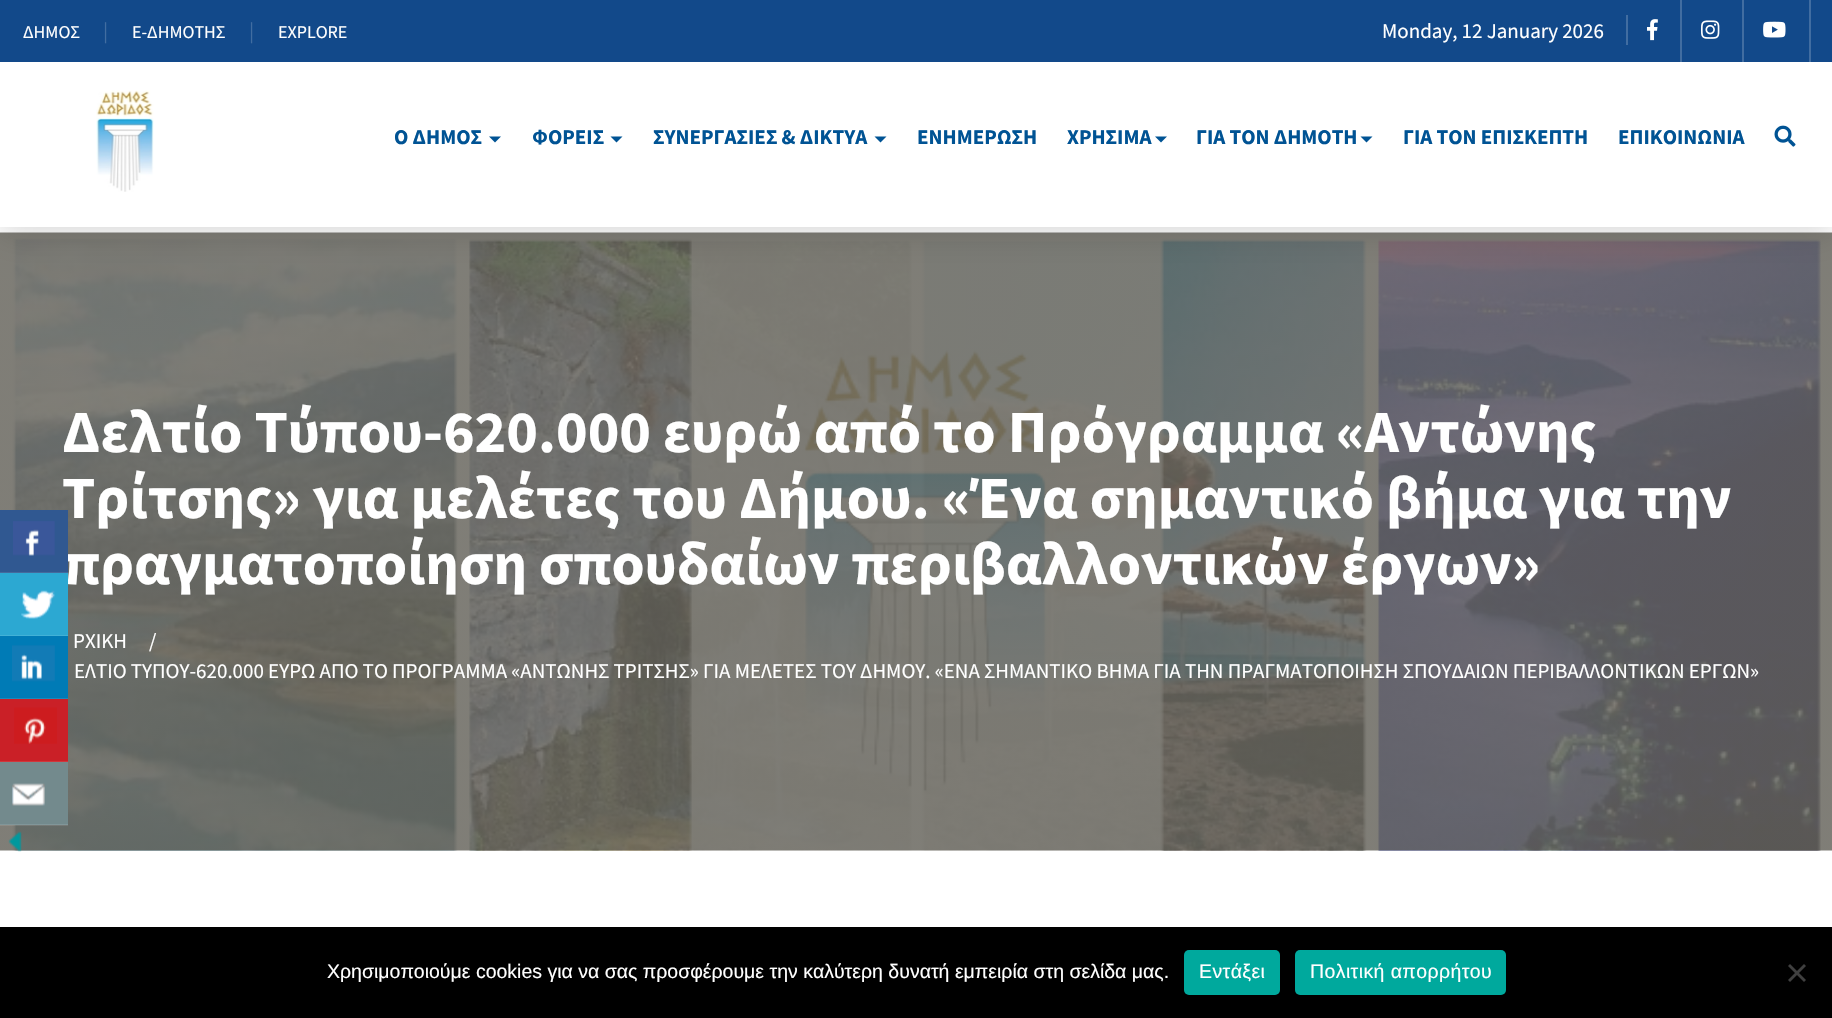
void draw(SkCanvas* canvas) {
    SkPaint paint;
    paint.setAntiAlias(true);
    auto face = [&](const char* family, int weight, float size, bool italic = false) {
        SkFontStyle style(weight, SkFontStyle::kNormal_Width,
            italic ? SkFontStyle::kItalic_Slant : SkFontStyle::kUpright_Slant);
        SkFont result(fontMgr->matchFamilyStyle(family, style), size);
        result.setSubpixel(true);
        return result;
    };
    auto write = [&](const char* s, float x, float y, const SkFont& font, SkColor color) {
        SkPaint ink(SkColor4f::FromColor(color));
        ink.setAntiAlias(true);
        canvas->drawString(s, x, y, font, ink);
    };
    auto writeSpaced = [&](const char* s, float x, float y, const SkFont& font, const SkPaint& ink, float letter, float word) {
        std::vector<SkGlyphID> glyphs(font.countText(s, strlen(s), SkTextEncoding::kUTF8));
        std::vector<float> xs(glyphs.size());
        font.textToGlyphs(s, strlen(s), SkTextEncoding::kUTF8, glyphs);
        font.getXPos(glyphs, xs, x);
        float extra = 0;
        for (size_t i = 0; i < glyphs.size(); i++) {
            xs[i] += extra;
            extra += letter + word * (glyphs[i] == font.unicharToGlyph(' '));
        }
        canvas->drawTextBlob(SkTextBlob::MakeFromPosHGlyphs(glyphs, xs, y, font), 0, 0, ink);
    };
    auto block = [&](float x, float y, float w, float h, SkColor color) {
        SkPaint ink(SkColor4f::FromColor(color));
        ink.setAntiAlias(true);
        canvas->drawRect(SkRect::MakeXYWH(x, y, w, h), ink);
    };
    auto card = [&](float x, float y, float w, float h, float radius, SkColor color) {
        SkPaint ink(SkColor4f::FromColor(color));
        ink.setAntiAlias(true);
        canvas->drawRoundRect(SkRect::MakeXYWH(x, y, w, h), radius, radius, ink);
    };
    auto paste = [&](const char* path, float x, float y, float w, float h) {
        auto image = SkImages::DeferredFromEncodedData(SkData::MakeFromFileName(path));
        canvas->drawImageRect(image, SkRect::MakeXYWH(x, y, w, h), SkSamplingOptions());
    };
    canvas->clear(SK_ColorWHITE);
    paste("pic6.png", 0, 232, 1832, 619);
    paint.setColor(SkColorSetARGB(38, 0, 0, 0));
    paint.setMaskFilter(SkMaskFilter::MakeBlur(kNormal_SkBlurStyle, 15));
    canvas->drawRect(SkRect::MakeXYWH(0, 8, 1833, 226), paint);
    paint.setMaskFilter(nullptr);
    block(0, 62, 1832, 165, SK_ColorWHITE);
    block(0, 0, 1832, 62, SkColorSetRGB(18, 73, 138));
    auto kFont1 = face("Source Sans Pro", 400, 18);
    write("ΔΗΜΟΣ", 23, 38, kFont1, SK_ColorWHITE);
    auto kFont2 = face("Source Sans Pro", 400, 21);
    write("|", 103, 38, kFont2, SkColorSetRGB(65, 109, 161));
    write("E-ΔΗΜΟΤΗΣ", 132, 38, kFont1, SK_ColorWHITE);
    write("|", 249, 38, kFont2, SkColorSetRGB(65, 109, 161));
    write("EXPLORE", 278, 38, kFont1, SK_ColorWHITE);
    block(1626, 15, 2, 30, SkColorSetRGB(65, 109, 161));
    write("Monday, 12 January 2026", 1382, 38, kFont2, SK_ColorWHITE);
    block(1680, 0, 2, 62, SkColorSetRGB(65, 109, 161));
    paste("pic1.png", 1647, 19, 11, 22);
    block(1742, 0, 2, 62, SkColorSetRGB(65, 109, 161));
    paste("pic2.png", 1701, 20, 19, 19);
    block(1809, 0, 2, 62, SkColorSetRGB(65, 109, 161));
    paste("pic3.png", 1763, 21, 23, 17);
    paste("pic4.png", 96, 90, 58, 102);
    auto kFont3 = face("Source Sans Pro", 700, 21);
    write("Ο ΔΗΜΟΣ", 394, 144, kFont3, SkColorSetRGB(0, 83, 148));
    paint.setColor(SkColorSetRGB(0, 83, 148));
    canvas->drawPath(SkPathBuilder().moveTo(489, 136.5f).lineTo(501, 136.5f).lineTo(495, 142.5f).close().detach(), paint);
    write("ΦΟΡΕΙΣ", 532, 144, kFont3, SkColorSetRGB(0, 83, 148));
    canvas->drawPath(SkPathBuilder().moveTo(610.5f, 136.5f).lineTo(622.5f, 136.5f).lineTo(616.5f, 142.5f).close().detach(), paint);
    write("ΣΥΝΕΡΓΑΣΙΕΣ & ΔΙΚΤΥΑ", 653, 144, kFont3, SkColorSetRGB(0, 83, 148));
    canvas->drawPath(SkPathBuilder().moveTo(874.5f, 136.5f).lineTo(886.5f, 136.5f).lineTo(880.5f, 142.5f).close().detach(), paint);
    write("ΕΝΗΜΕΡΩΣΗ", 917, 144, kFont3, SkColorSetRGB(0, 83, 148));
    write("ΧΡΗΣΙΜΑ", 1067, 144, kFont3, SkColorSetRGB(0, 83, 148));
    canvas->drawPath(SkPathBuilder().moveTo(1155, 136.5f).lineTo(1167, 136.5f).lineTo(1161, 142.5f).close().detach(), paint);
    write("ΓΙΑ ΤΟΝ ΔΗΜΟΤΗ", 1196, 144, kFont3, SkColorSetRGB(0, 83, 148));
    canvas->drawPath(SkPathBuilder().moveTo(1360.5f, 136.5f).lineTo(1372.5f, 136.5f).lineTo(1366.5f, 142.5f).close().detach(), paint);
    write("ΓΙΑ ΤΟΝ ΕΠΙΣΚΕΠΤΗ", 1403, 144, kFont3, SkColorSetRGB(0, 83, 148));
    write("ΕΠΙΚΟΙΝΩΝΙΑ", 1618, 144, kFont3, SkColorSetRGB(0, 83, 148));
    paste("pic5.png", 1774, 125, 22, 22);
    auto kFont4 = face("Source Sans Pro", 700, 60);
    write("Δελτίο Τύπου-620.000 ευρώ από το Πρόγραμμα «Αντώνης", 62, 452, kFont4, SK_ColorWHITE);
    write("Τρίτσης» για μελέτες του Δήμου. «Ένα σημαντικό βήμα για την", 62, 518, kFont4, SK_ColorWHITE);
    write("πραγματοποίηση σπουδαίων περιβαλλοντικών έργων»", 62, 584, kFont4, SK_ColorWHITE);
    write("ΡΧΙΚΗ", 73, 648, kFont2, SK_ColorWHITE);
    write("/", 149, 648, kFont2, SK_ColorWHITE);
    write("ΕΛΤΙΟ ΤΥΠΟΥ-620.000 ΕΥΡΩ ΑΠΟ ΤΟ ΠΡΟΓΡΑΜΜΑ «ΑΝΤΩΝΗΣ ΤΡΙΤΣΗΣ» ΓΙΑ ΜΕΛΕΤΕΣ ΤΟΥ ΔΗΜΟΥ. «ΕΝΑ ΣΗΜΑΝΤΙΚΟ ΒΗΜΑ ΓΙΑ ΤΗΝ ΠΡΑΓΜΑΤΟΠΟΙΗΣΗ ΣΠΟΥΔΑΙΩΝ ΠΕΡΙΒΑΛΛΟΝΤΙΚΩΝ ΕΡΓΩΝ»", 74, 678, kFont2, SK_ColorWHITE);
    block(0, 510, 68, 63, SkColorSetRGB(48, 88, 145));
    block(0, 572, 68, 1, SkColorSetARGB(26, 255, 255, 255));
    paste("pic7.png", 13, 521, 42, 35);
    block(0, 573, 68, 63, SkColorSetRGB(44, 168, 210));
    block(0, 635, 68, 1, SkColorSetARGB(26, 255, 255, 255));
    paste("pic8.png", 21, 590, 34, 29);
    block(0, 636, 68, 63, SkColorSetRGB(0, 123, 182));
    block(0, 698, 68, 1, SkColorSetARGB(26, 255, 255, 255));
    paste("pic9.png", 12, 645, 43, 37);
    block(0, 699, 68, 63, SkColorSetRGB(202, 32, 39));
    block(0, 761, 68, 1, SkColorSetARGB(26, 255, 255, 255));
    paste("pic10.png", 14, 707, 43, 37);
    block(0, 762, 68, 63, SkColorSetRGB(115, 138, 141));
    block(0, 824, 68, 2, SkColorSetARGB(26, 255, 255, 255));
    paste("pic11.png", 12, 783, 33, 23);
    paste("pic12.png", 8, 831, 14, 21);
    block(0, 927, 1832, 91, SK_ColorBLACK);
    auto kFont5 = face("Liberation Sans", 400, 19.5f);
    write("Χρησιμοποιούμε cookies για να σας προσφέρουμε την καλύτερη δυνατή εμπειρία στη σελίδα μας.", 327, 978, kFont5, SK_ColorWHITE);
    card(1184, 950, 96, 45, 5, SkColorSetRGB(0, 169, 157));
    paint.setColor(SK_ColorWHITE);
    writeSpaced("Εντάξει", 1199, 978, kFont5, paint, 0.4f, 0);
    card(1295, 950, 211, 45, 5, SkColorSetRGB(0, 169, 157));
    writeSpaced("Πολιτική απορρήτου", 1310, 978, kFont5, paint, 0.4f, 0);
    paint.setColor(SkColorSetRGB(64, 64, 64));
    canvas->drawPath(SkPathBuilder().moveTo(1804, 964).lineTo(1806, 966).lineTo(1790, 982).lineTo(1788, 980).close().detach(), paint);
    canvas->drawPath(SkPathBuilder().moveTo(1788, 966).lineTo(1790, 964).lineTo(1806, 980).lineTo(1804, 982).close().detach(), paint);
}
